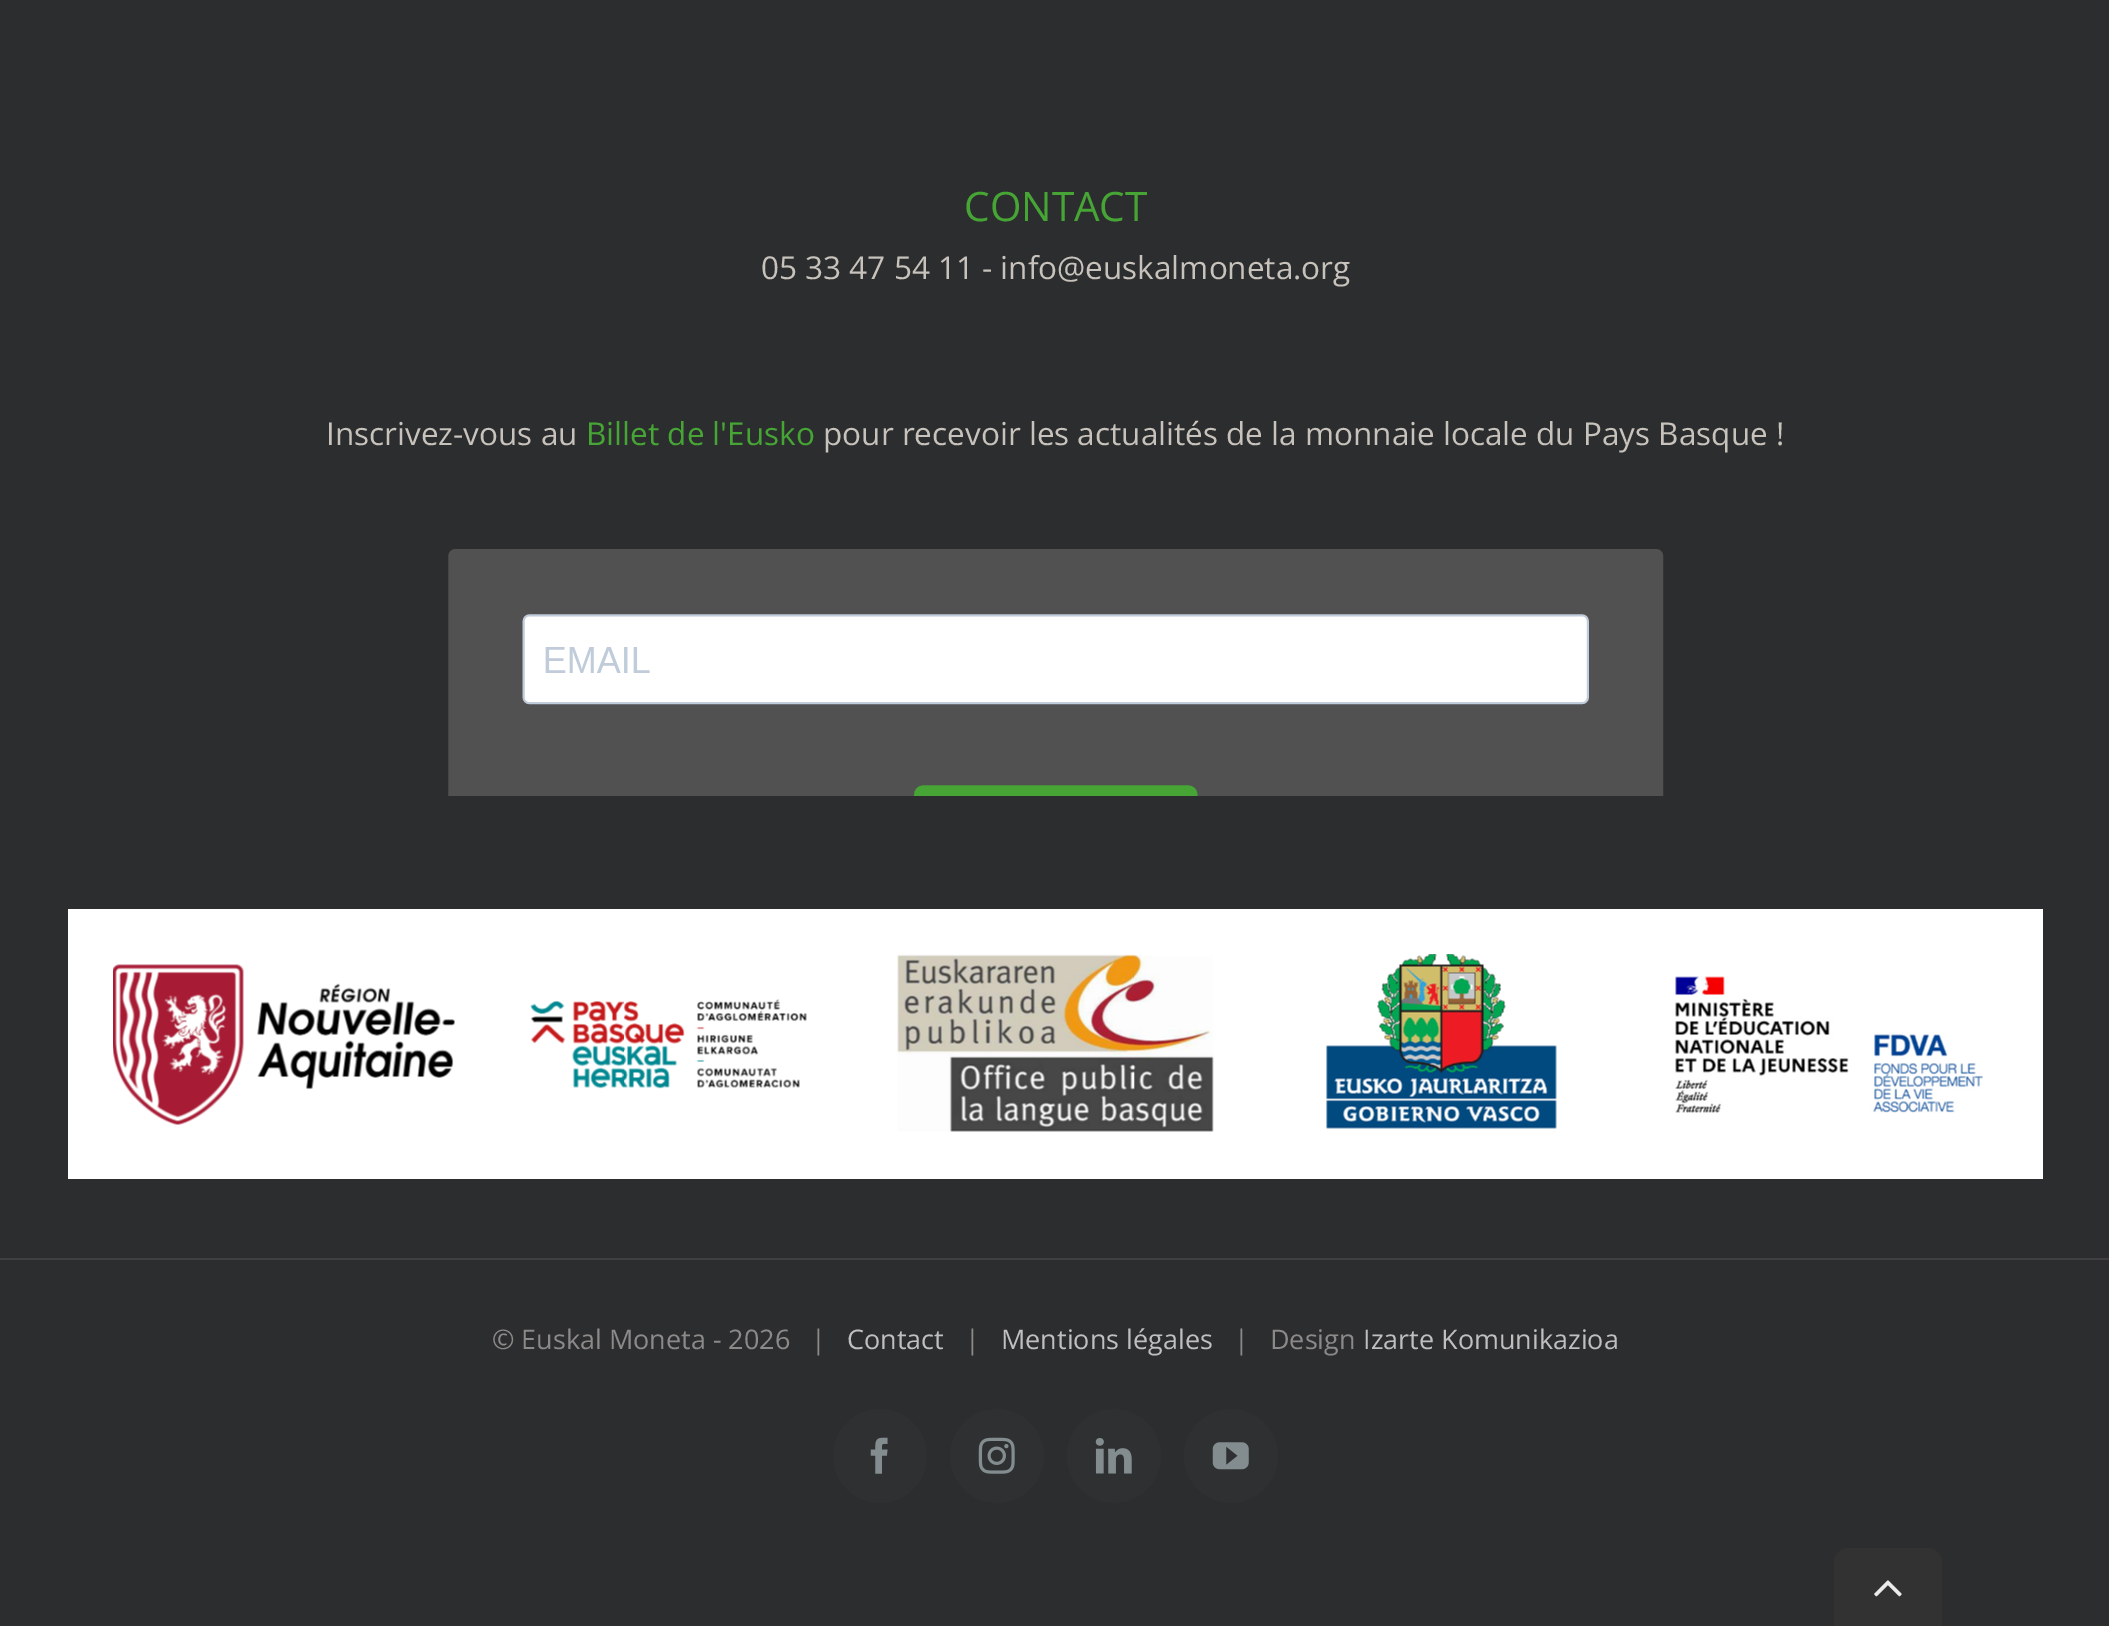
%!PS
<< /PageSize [2109 1626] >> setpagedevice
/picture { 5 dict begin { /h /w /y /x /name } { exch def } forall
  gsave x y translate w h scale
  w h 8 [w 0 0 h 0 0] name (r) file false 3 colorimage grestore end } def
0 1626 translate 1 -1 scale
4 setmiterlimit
0.173 0.176 0.184 setrgbcolor
0 0 2109 1626 rectfill
/OpenSans-Regular [40.5 0 0 -40.5 0 0] selectfont
0.275 0.647 0.204 setrgbcolor
964 221 moveto (CONTACT) show
/OpenSans-Regular [31.5 0 0 -31.5 0 0] selectfont
0.78 0.761 0.733 setrgbcolor
761 279 moveto (05 33 47 54 11 - info@euskalmoneta.org) show
326 445 moveto (Inscrivez-vous au) show
0.275 0.647 0.204 setrgbcolor
586 445 moveto (Billet de l'Eusko) show
0.78 0.761 0.733 setrgbcolor
823 445 moveto (pour recevoir les actualités de la monnaie locale du Pays Basque !) show
(img1.rgb) 448 549 1216 247 picture
1 setgray
68 909 1975 270 rectfill
(img2.rgb) 113 964 342 161 picture
(img3.rgb) 530 999 277 90 picture
(img4.rgb) 897 954 317 178 picture
(img5.rgb) 1326 954 231 175 picture
(img6.rgb) 1675 976 308 137 picture
0.251 0.251 0.259 setrgbcolor
0 1258 2109 2 rectfill
/OpenSans-Regular [27 0 0 -27 0 0] selectfont
0.549 0.537 0.537 setrgbcolor
492 1349 moveto (© Euskal Moneta - 2026   |) show
0.749 setgray
847 1349 moveto (Contact) show
0.549 0.537 0.537 setrgbcolor
965 1349 moveto (|) show
0.749 setgray
1001 1349 moveto (Mentions légales) show
0.549 0.537 0.537 setrgbcolor
1234 1349 moveto (|   Design) show
0.749 setgray
1363 1349 moveto (Izarte Komunikazioa) show
0.184 0.188 0.196 setrgbcolor
newpath 880 1456 47 0 360 arc closepath fill
(img7.rgb) 870 1437 18 37 picture
newpath 997 1456 47 0 360 arc closepath fill
(img8.rgb) 978 1437 37 37 picture
newpath 1114 1456 47 0 360 arc closepath fill
(img9.rgb) 1095 1438 37 36 picture
newpath 1231 1456 47 0 360 arc closepath fill
(img10.rgb) 1212 1442 37 28 picture
0.196 0.196 0.2 setrgbcolor
newpath 1848 1548 moveto 1928 1548 lineto 1935.5 1548 1942 1554.5 1942 1562 curveto 1942 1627 lineto 1834 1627 lineto 1834 1562 lineto 1834 1554.5 1840.5 1548 1848 1548 curveto closepath fill
(img11.rgb) 1874 1580 28 17 picture
showpage
